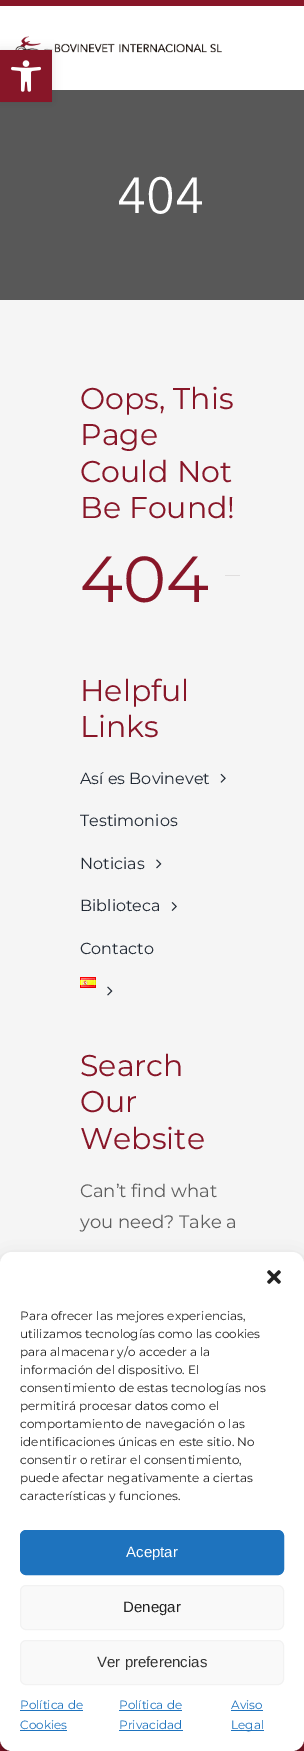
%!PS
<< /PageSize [304 1751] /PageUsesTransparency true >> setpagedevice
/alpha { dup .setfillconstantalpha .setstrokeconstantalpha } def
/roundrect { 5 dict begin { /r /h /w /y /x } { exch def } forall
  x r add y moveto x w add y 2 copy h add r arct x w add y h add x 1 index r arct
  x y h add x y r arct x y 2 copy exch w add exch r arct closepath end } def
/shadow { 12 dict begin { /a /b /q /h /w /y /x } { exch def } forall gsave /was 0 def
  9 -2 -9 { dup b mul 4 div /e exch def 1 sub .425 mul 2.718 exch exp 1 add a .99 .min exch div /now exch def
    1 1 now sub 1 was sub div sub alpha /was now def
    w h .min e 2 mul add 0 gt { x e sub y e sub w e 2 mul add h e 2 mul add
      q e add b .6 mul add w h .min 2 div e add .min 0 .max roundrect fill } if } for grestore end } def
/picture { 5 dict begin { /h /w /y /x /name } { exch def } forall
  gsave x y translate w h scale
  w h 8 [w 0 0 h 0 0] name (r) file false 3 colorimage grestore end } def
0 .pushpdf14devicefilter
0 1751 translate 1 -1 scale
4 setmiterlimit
0.961 setgray
0 0 304 1751 rectfill
1 setgray
0 6 304 84 rectfill
(img2.rgb) 15 36 207 17 picture
0.345 setgray
0 90 304 210 rectfill
0 setgray
0 50 52 52 0 5 0.1 shadow
0.533 0.086 0.157 setrgbcolor
0 50 52 52 rectfill
(img1.rgb) 11 60 30 32 picture
0 0 304 6 rectfill
/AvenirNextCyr-Regular [50 0 0 -50 0 0] selectfont
1 setgray
117 213 moveto (404) show
/Montserrat-Regular [30 0 0 -30 0 0] selectfont
0.533 0.086 0.157 setrgbcolor
80 409 moveto (Oops, This) show
80 445 moveto (Page) show
80 482 moveto (Could Not) show
80 518 moveto (Be Found!) show
/Montserrat-Regular [65 0 0 -65 0 0] selectfont
80 602 moveto (404) show
0.878 0.871 0.871 setrgbcolor
225 575 15 1 rectfill
/Montserrat-Regular [30 0 0 -30 0 0] selectfont
0.533 0.086 0.157 setrgbcolor
80 701 moveto (Helpful) show
80 737 moveto (Links) show
/Montserrat-Regular [16 0 0 -16 0 0] selectfont
0.129 0.161 0.204 setrgbcolor
80 784 moveto (Así es Bovinevet) show
(img3.rgb) 220 773 6 10 picture
80 826 moveto (Testimonios) show
80 869 moveto (Noticias) show
(img4.rgb) 156 859 6 10 picture
80 911 moveto (Biblioteca) show
(img5.rgb) 171 902 6 9 picture
80 954 moveto (Contacto) show
(img6.rgb) 80 977 16 11 picture
(img7.rgb) 107 986 6 10 picture
/Montserrat-Regular [30 0 0 -30 0 0] selectfont
0.533 0.086 0.157 setrgbcolor
80 1076 moveto (Search) show
80 1112 moveto (Our) show
80 1149 moveto (Website) show
/Montserrat-Regular [18 0 0 -18 0 0] selectfont
0.369 setgray
80 1197 moveto (Can’t find what) show
80 1228 moveto (you need? Take a) show
0.533 0.086 0.157 setrgbcolor
0 1739 304 12 rectfill
0 setgray
0 1258 304 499 12 3 0.23 shadow
0 1262 304 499 12 10 0.19 shadow
1 setgray
0 1252 304 499 12 roundrect fill
(img8.rgb) 267 1270 14 14 picture
/Montserrat-Regular [12 0 0 -12 0 0] selectfont
0.133 setgray
20 1320 moveto (Para ofrecer las mejores experiencias,) show
20 1338 moveto (utilizamos tecnologías como las cookies) show
20 1356 moveto (para almacenar y/o acceder a la) show
20 1374 moveto (información del dispositivo. El) show
20 1392 moveto (consentimiento de estas tecnologías nos) show
20 1410 moveto (permitirá procesar datos como el) show
20 1428 moveto (comportamiento de navegación o las) show
20 1446 moveto (identificaciones únicas en este sitio. No) show
20 1464 moveto (consentir o retirar el consentimiento,) show
20 1482 moveto (puede afectar negativamente a ciertas) show
20 1500 moveto (características y funciones.) show
0.118 0.451 0.745 setrgbcolor
20.5 1530.5 263 44 5.5 roundrect gsave fill grestore
stroke
/LiberationSans-Regular [15 0 0 -15 0 0] selectfont
1 setgray
126 1557 moveto (Aceptar) show
0.976 setgray
20.5 1585.5 263 44 5.5 roundrect gsave fill grestore
0.949 setgray
stroke
0.133 setgray
123 1612 moveto (Denegar) show
0.976 setgray
20.5 1640.5 263 44 5.5 roundrect gsave fill grestore
0.949 setgray
stroke
0.2 setgray
97 1667 moveto (Ver preferencias) show
/Montserrat-Regular [12 0 0 -12 0 0] selectfont
0.118 0.451 0.745 setrgbcolor
20 1709 moveto (Política de) show
20 1710 63 1 rectfill
20 1729 moveto (Cookies) show
20 1730 47 1 rectfill
119 1709 moveto (Política de) show
119 1710 63 1 rectfill
119 1729 moveto (Privacidad) show
119 1730 64 1 rectfill
231 1709 moveto (Aviso) show
231 1710 32 1 rectfill
231 1730 33 1 rectfill
231 1729 moveto (Legal) show
.poppdf14devicefilter showpage
